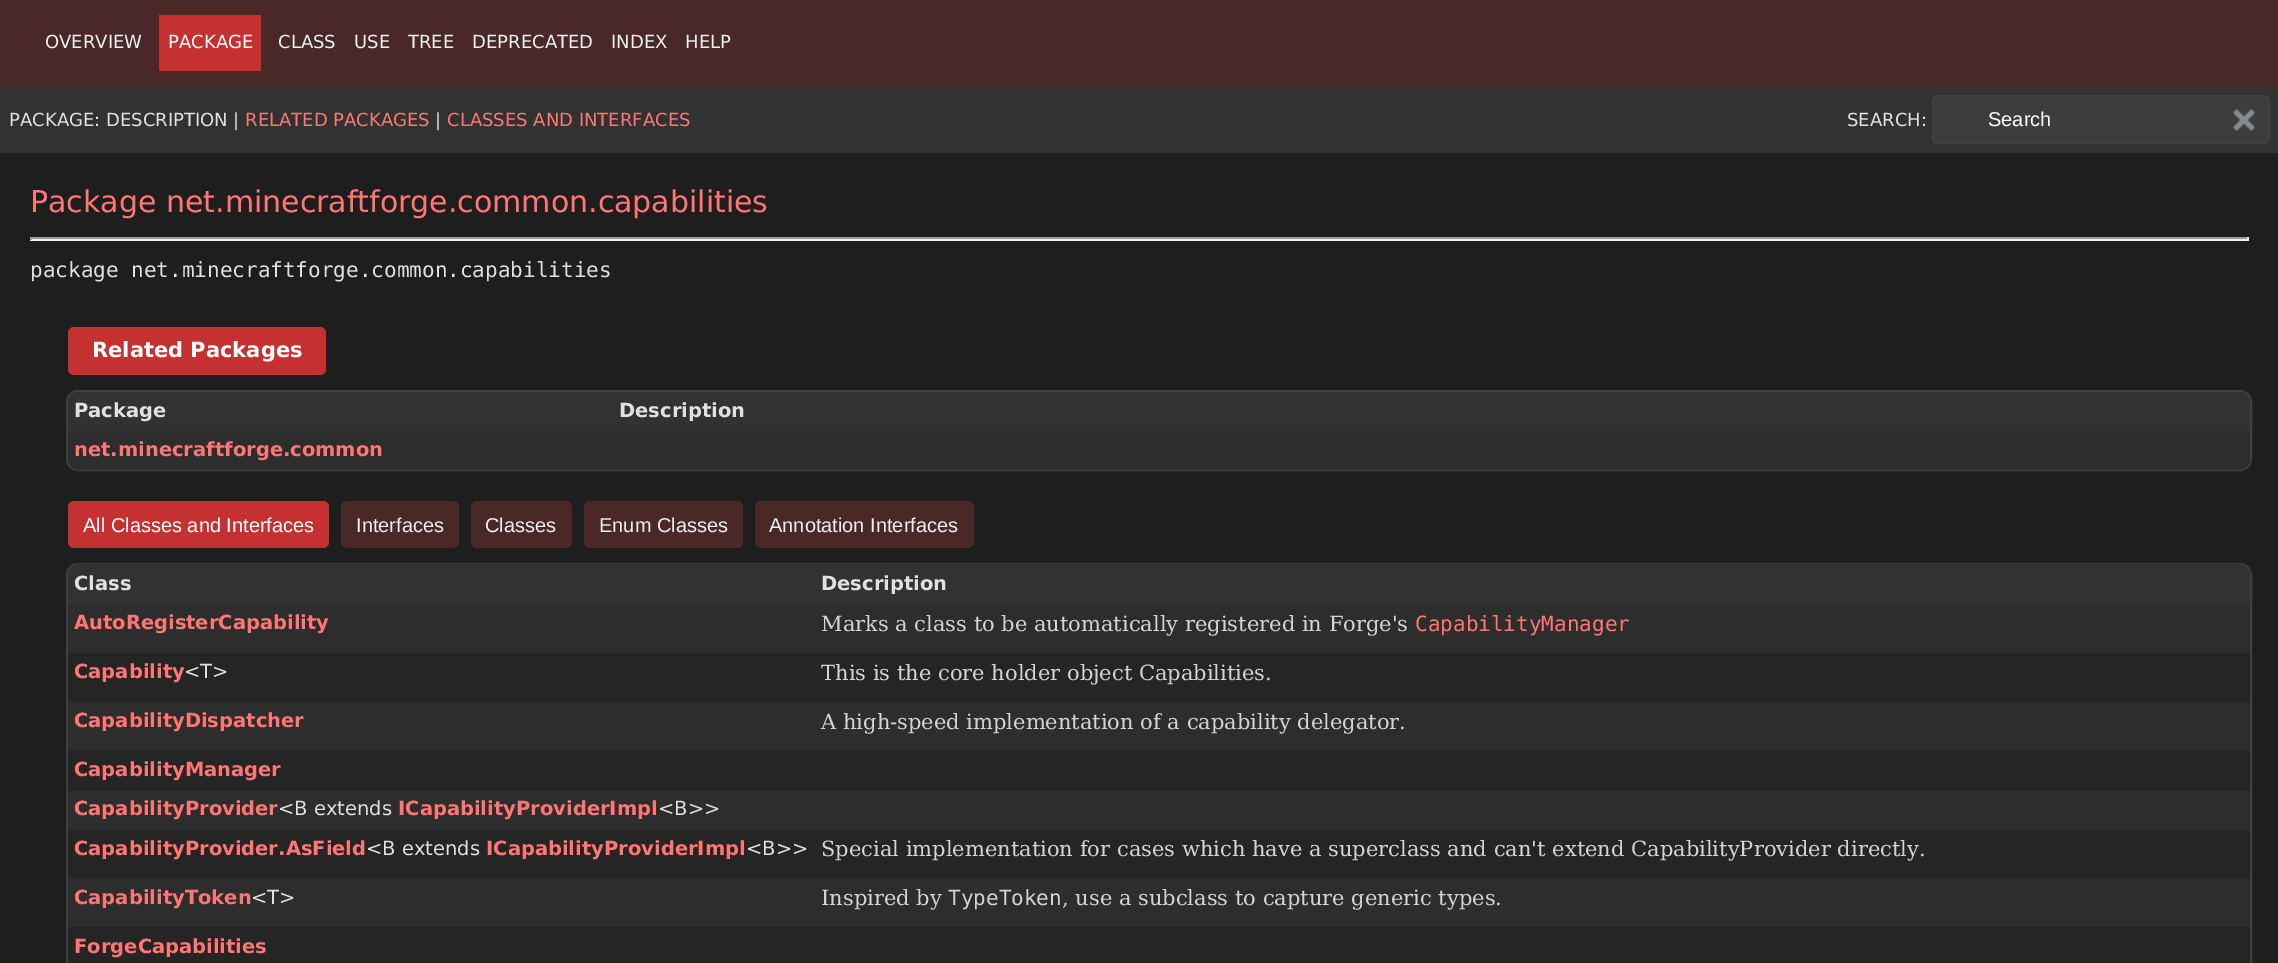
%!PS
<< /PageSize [2278 963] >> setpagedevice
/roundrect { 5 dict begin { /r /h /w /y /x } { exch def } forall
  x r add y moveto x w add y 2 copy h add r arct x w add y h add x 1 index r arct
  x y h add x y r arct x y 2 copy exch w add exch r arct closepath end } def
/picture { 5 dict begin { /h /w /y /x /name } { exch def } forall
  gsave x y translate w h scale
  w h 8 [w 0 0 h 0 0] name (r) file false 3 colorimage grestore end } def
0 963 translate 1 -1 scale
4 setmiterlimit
0.118 setgray
0 0 2278 963 rectfill
0.29 0.157 0.157 setrgbcolor
0 0 2278 86 rectfill
/DejaVuSans-Regular [18 0 0 -18 0 0] selectfont
0.925 0.941 0.945 setrgbcolor
45 48 moveto (OVERVIEW) show
0.773 0.188 0.188 setrgbcolor
159 15 102 56 rectfill
1 setgray
168 48 moveto (PACKAGE) show
0.925 0.941 0.945 setrgbcolor
278 48 moveto (CLASS) show
354 48 moveto (USE) show
408 48 moveto (TREE) show
472 48 moveto (DEPRECATED) show
611 48 moveto (INDEX) show
685 48 moveto (HELP) show
0.196 0.196 0.2 setrgbcolor
0 86 2278 67 rectfill
0.882 setgray
9 126 moveto (PACKAGE: DESCRIPTION |) show
1 0.463 0.459 setrgbcolor
245 126 moveto (RELATED PACKAGES) show
0.882 setgray
435 126 moveto (|) show
1 0.463 0.459 setrgbcolor
447 126 moveto (CLASSES AND INTERFACES) show
0.882 setgray
1847 126 moveto (SEARCH:) show
0.239 setgray
1933 96 336 47 5 roundrect gsave fill grestore
0.251 setgray
2 setlinewidth
stroke
/LiberationSans-Regular [20 0 0 -20 0 0] selectfont
1 setgray
1988 126 moveto (Search) show
(img1.rgb) 2233 109 22 22 picture
/DejaVuSans-Regular [30 0 0 -30 0 0] selectfont
1 0.463 0.459 setrgbcolor
30 212 moveto (Package net.minecraftforge.common.capabilities) show
0.624 setgray
30 237 2219 2 rectfill
0.933 setgray
2247 237 2 3 rectfill
30 239 2219 2 rectfill
0.624 setgray
30 237 2 3 rectfill
/DejaVuSansMono-Regular [21 0 0 -21 0 0] selectfont
0.882 setgray
30 277 moveto (package net.minecraftforge.common.capabilities) show
0.773 0.188 0.188 setrgbcolor
68 327 258 48 6 roundrect fill
/DejaVuSans-Bold [21 0 0 -21 0 0] selectfont
1 setgray
92 357 moveto (Related Packages) show
0.251 setgray
67 391 2184 79 11 roundrect stroke
0.196 0.196 0.2 setrgbcolor
newpath 79 392 moveto 614 392 lineto 614 431 lineto 68 431 lineto 68 403 lineto 68 397 73 392 79 392 curveto closepath fill
/DejaVuSans-Bold [19.5 0 0 -19.5 0 0] selectfont
0.882 setgray
74 417 moveto (Package) show
0.196 0.196 0.2 setrgbcolor
newpath 614 392 moveto 2239 392 lineto 2245 392 2250 397 2250 403 curveto 2250 431 lineto 614 431 lineto closepath fill
0.882 setgray
619 417 moveto (Description) show
0.176 setgray
newpath 68 431 moveto 614 431 lineto 614 470 lineto 79 470 lineto 73 470 68 465 68 459 curveto closepath fill
1 0.463 0.459 setrgbcolor
74 456 moveto (net.minecraftforge.common) show
0.176 setgray
newpath 614 431 moveto 2250 431 lineto 2250 459 lineto 2250 465 2245 470 2239 470 curveto 614 470 lineto closepath fill
0.773 0.188 0.188 setrgbcolor
68 501 261 47 6 roundrect fill
/LiberationSans-Regular [20 0 0 -20 0 0] selectfont
1 setgray
83 532 moveto (All Classes and Interfaces) show
0.29 0.157 0.157 setrgbcolor
341 501 118 47 6 roundrect fill
0.925 0.941 0.945 setrgbcolor
356 532 moveto (Interfaces) show
0.29 0.157 0.157 setrgbcolor
471 501 101 47 6 roundrect fill
0.925 0.941 0.945 setrgbcolor
485 532 moveto (Classes) show
0.29 0.157 0.157 setrgbcolor
584 501 159 47 6 roundrect fill
0.925 0.941 0.945 setrgbcolor
599 532 moveto (Enum Classes) show
0.29 0.157 0.157 setrgbcolor
755 501 219 47 6 roundrect fill
0.925 0.941 0.945 setrgbcolor
769 532 moveto (Annotation Interfaces) show
0.251 setgray
67 564 2184 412 11 roundrect stroke
0.196 0.196 0.2 setrgbcolor
newpath 79 564 moveto 815 564 lineto 815 605 lineto 68 605 lineto 68 575 lineto 68 569 73 564 79 564 curveto closepath fill
/DejaVuSans-Bold [19.5 0 0 -19.5 0 0] selectfont
0.882 setgray
74 590 moveto (Class) show
0.196 0.196 0.2 setrgbcolor
newpath 815 564 moveto 2239 564 lineto 2245 564 2250 569 2250 575 curveto 2250 605 lineto 815 605 lineto closepath fill
0.882 setgray
821 590 moveto (Description) show
0.176 setgray
68 605 2182 48 rectfill
1 0.463 0.459 setrgbcolor
74 629 moveto (AutoRegisterCapability) show
/DejaVuSerif-Regular [21 0 0 -21 0 0] selectfont
0.831 setgray
821 631 moveto (Marks a class to be automatically registered in Forge's) show
/DejaVuSansMono-Regular [21 0 0 -21 0 0] selectfont
1 0.463 0.459 setrgbcolor
1415 631 moveto (CapabilityManager) show
0.145 0.145 0.149 setrgbcolor
68 653 2182 49 rectfill
/DejaVuSans-Bold [19.5 0 0 -19.5 0 0] selectfont
1 0.463 0.459 setrgbcolor
74 678 moveto (Capability) show
/DejaVuSans-Regular [19.5 0 0 -19.5 0 0] selectfont
0.882 setgray
184 678 moveto (<T>) show
/DejaVuSerif-Regular [21 0 0 -21 0 0] selectfont
0.831 setgray
821 680 moveto (This is the core holder object Capabilities.) show
0.176 setgray
68 702 2182 48 rectfill
/DejaVuSans-Bold [19.5 0 0 -19.5 0 0] selectfont
1 0.463 0.459 setrgbcolor
74 727 moveto (CapabilityDispatcher) show
/DejaVuSerif-Regular [21 0 0 -21 0 0] selectfont
0.831 setgray
821 729 moveto (A high-speed implementation of a capability delegator.) show
0.145 0.145 0.149 setrgbcolor
68 750 2182 41 rectfill
/DejaVuSans-Bold [19.5 0 0 -19.5 0 0] selectfont
1 0.463 0.459 setrgbcolor
74 776 moveto (CapabilityManager) show
0.176 setgray
68 791 2182 39 rectfill
1 0.463 0.459 setrgbcolor
74 815 moveto (CapabilityProvider) show
/DejaVuSans-Regular [19.5 0 0 -19.5 0 0] selectfont
0.882 setgray
278 815 moveto (<B extends) show
/DejaVuSans-Bold [19.5 0 0 -19.5 0 0] selectfont
1 0.463 0.459 setrgbcolor
398 815 moveto (ICapabilityProviderImpl) show
/DejaVuSans-Regular [19.5 0 0 -19.5 0 0] selectfont
0.882 setgray
658 815 moveto (<B>>) show
0.145 0.145 0.149 setrgbcolor
68 830 2182 48 rectfill
/DejaVuSans-Bold [19.5 0 0 -19.5 0 0] selectfont
1 0.463 0.459 setrgbcolor
74 855 moveto (CapabilityProvider.AsField) show
/DejaVuSans-Regular [19.5 0 0 -19.5 0 0] selectfont
0.882 setgray
366 855 moveto (<B extends) show
/DejaVuSans-Bold [19.5 0 0 -19.5 0 0] selectfont
1 0.463 0.459 setrgbcolor
486 855 moveto (ICapabilityProviderImpl) show
/DejaVuSans-Regular [19.5 0 0 -19.5 0 0] selectfont
0.882 setgray
746 855 moveto (<B>>) show
/DejaVuSerif-Regular [21 0 0 -21 0 0] selectfont
0.831 setgray
821 856 moveto (Special implementation for cases which have a superclass and can't extend CapabilityProvider directly.) show
0.176 setgray
68 878 2182 49 rectfill
/DejaVuSans-Bold [19.5 0 0 -19.5 0 0] selectfont
1 0.463 0.459 setrgbcolor
74 904 moveto (CapabilityToken) show
/DejaVuSans-Regular [19.5 0 0 -19.5 0 0] selectfont
0.882 setgray
251 904 moveto (<T>) show
/DejaVuSerif-Regular [21 0 0 -21 0 0] selectfont
0.831 setgray
821 905 moveto (Inspired by) show
/DejaVuSansMono-Regular [21 0 0 -21 0 0] selectfont
948 905 moveto (TypeToken) show
/DejaVuSerif-Regular [21 0 0 -21 0 0] selectfont
1062 905 moveto (, use a subclass to capture generic types.) show
0.145 0.145 0.149 setrgbcolor
68 927 2182 36 rectfill
/DejaVuSans-Bold [19.5 0 0 -19.5 0 0] selectfont
1 0.463 0.459 setrgbcolor
74 953 moveto (ForgeCapabilities) show
showpage
